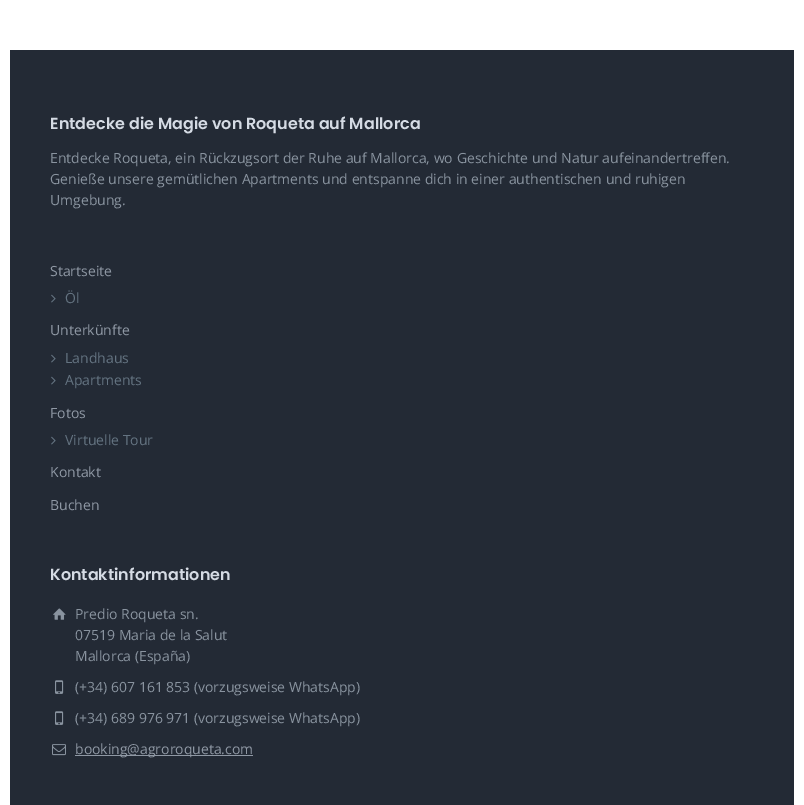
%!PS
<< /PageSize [804 805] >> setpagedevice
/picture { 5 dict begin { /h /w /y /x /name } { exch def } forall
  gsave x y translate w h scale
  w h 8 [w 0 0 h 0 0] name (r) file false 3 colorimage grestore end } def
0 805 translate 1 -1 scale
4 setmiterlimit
1 setgray
0 0 804 805 rectfill
0.137 0.165 0.208 setrgbcolor
10 50 784 755 rectfill
/Poppins-SemiBold [16 0 0 -16 0 0] selectfont
0.835 0.859 0.894 setrgbcolor
50 129 moveto (Entdecke die Magie von Roqueta auf Mallorca) show
/OpenSans-Regular [14 0 0 -14 0 0] selectfont
0.537 0.576 0.624 setrgbcolor
50 163 moveto (Entdecke Roqueta, ein Rückzugsort der Ruhe auf Mallorca, wo Geschichte und Natur aufeinandertreffen.) show
50 184 moveto (Genieße unsere gemütlichen Apartments und entspanne dich in einer authentischen und ruhigen) show
50 205 moveto (Umgebung.) show
0.561 0.596 0.643 setrgbcolor
50 276 moveto (Startseite) show
(img1.rgb) 51 294 5 9 picture
0.392 0.451 0.506 setrgbcolor
65 303 moveto (Öl) show
0.561 0.596 0.643 setrgbcolor
50 335 moveto (Unterkünfte) show
(img1.rgb) 51 354 5 9 picture
0.392 0.451 0.506 setrgbcolor
65 363 moveto (Landhaus) show
(img1.rgb) 51 376 5 9 picture
65 385 moveto (Apartments) show
0.561 0.596 0.643 setrgbcolor
50 418 moveto (Fotos) show
(img1.rgb) 51 436 5 9 picture
0.392 0.451 0.506 setrgbcolor
65 445 moveto (Virtuelle Tour) show
0.561 0.596 0.643 setrgbcolor
50 477 moveto (Kontakt) show
50 510 moveto (Buchen) show
/Poppins-SemiBold [16 0 0 -16 0 0] selectfont
0.835 0.859 0.894 setrgbcolor
50 580 moveto (Kontaktinformationen) show
(img2.rgb) 53 608 13 12 picture
/OpenSans-Regular [14 0 0 -14 0 0] selectfont
0.537 0.576 0.624 setrgbcolor
75 619 moveto (Predio Roqueta sn.) show
75 640 moveto (07519 Maria de la Salut) show
75 661 moveto (Mallorca \(España\)) show
(img3.rgb) 55 680 9 14 picture
75 692 moveto (\(+34\) 607 161 853 \(vorzugsweise WhatsApp\)) show
(img3.rgb) 55 711 9 14 picture
75 723 moveto (\(+34\) 689 976 971 \(vorzugsweise WhatsApp\)) show
(img4.rgb) 52 744 14 12 picture
0.561 0.596 0.643 setrgbcolor
75 755 178 1 rectfill
75 754 moveto (booking@agroroqueta.com) show
showpage
